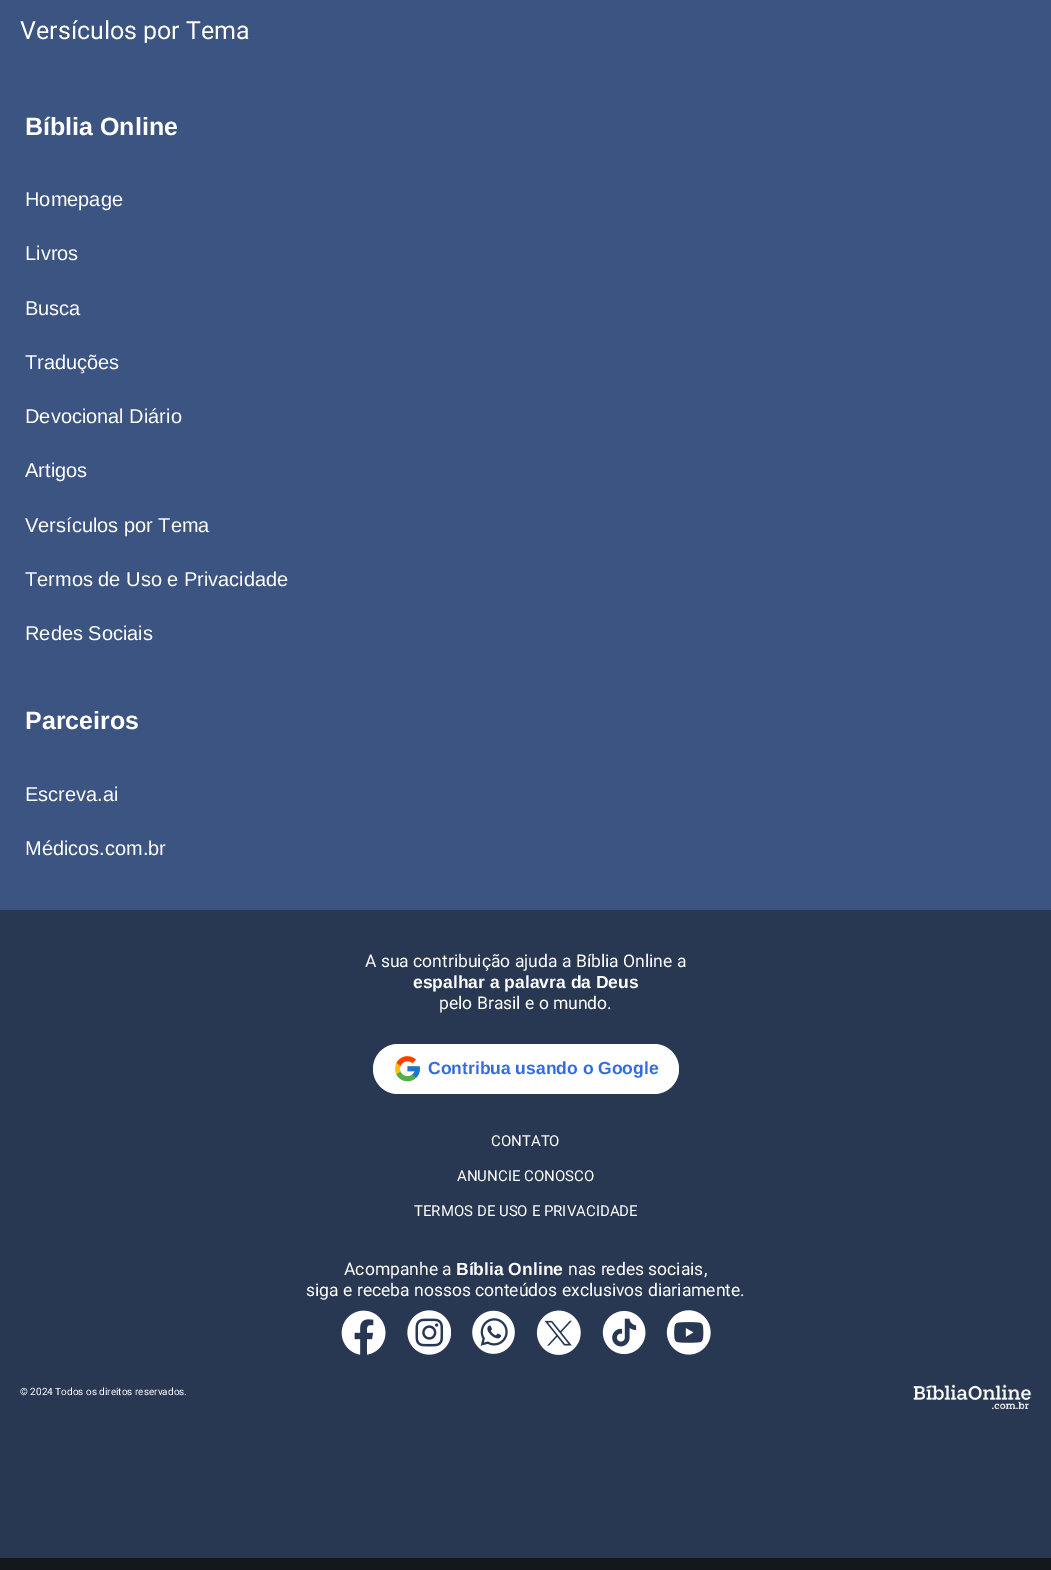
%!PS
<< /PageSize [1051 1570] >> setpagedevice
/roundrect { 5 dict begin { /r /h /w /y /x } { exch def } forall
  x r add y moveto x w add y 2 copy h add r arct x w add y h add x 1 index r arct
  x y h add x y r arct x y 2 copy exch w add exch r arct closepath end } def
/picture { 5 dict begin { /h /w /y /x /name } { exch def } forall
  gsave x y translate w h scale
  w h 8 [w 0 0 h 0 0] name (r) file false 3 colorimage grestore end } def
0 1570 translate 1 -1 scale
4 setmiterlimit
0.235 0.329 0.506 setrgbcolor
0 0 1051 1570 rectfill
gsave
20 18 230 25 rectclip
/Roboto-Regular [25 0 0 -25 0 0] selectfont
1 setgray
20 39 moveto (Versículos por Tema) show
grestore
/LiberationSans-Bold [25 0 0 -25 0 0] selectfont
1 setgray
25 135 moveto (Bíblia Online) show
/LiberationSans-Regular [20 0 0 -20 0 0] selectfont
25 206 moveto (Homepage) show
25 260 moveto (Livros) show
25 315 moveto (Busca) show
25 369 moveto (Traduções) show
25 423 moveto (Devocional Diário) show
25 477 moveto (Artigos) show
25 532 moveto (Versículos por Tema) show
25 586 moveto (Termos de Uso e Privacidade) show
25 640 moveto (Redes Sociais) show
/LiberationSans-Bold [25 0 0 -25 0 0] selectfont
25 729 moveto (Parceiros) show
/LiberationSans-Regular [20 0 0 -20 0 0] selectfont
25 801 moveto (Escreva.ai) show
25 855 moveto (Médicos.com.br) show
0.157 0.216 0.322 setrgbcolor
0 910 1051 648 rectfill
/Roboto-Regular [17.5 0 0 -17.5 0 0] selectfont
1 setgray
365 967 moveto (A sua contribuição ajuda a Bíblia Online a) show
/LiberationSans-Bold [17.5 0 0 -17.5 0 0] selectfont
413 988 moveto (espalhar a palavra da Deus) show
/Roboto-Regular [17.5 0 0 -17.5 0 0] selectfont
439 1009 moveto (pelo Brasil e o mundo.) show
373 1044 306 50 25 roundrect fill
(img1.rgb) 395 1056 25 26 picture
/LiberationSans-Bold [17.5 0 0 -17.5 0 0] selectfont
0.204 0.427 0.859 setrgbcolor
428 1074 moveto (Contribua usando o Google) show
/Roboto-Regular [15 0 0 -15 0 0] selectfont
1 setgray
491 1146 moveto (CONTATO) show
457 1181 moveto (ANUNCIE CONOSCO) show
414 1216 moveto (TERMOS DE USO E PRIVACIDADE) show
/Roboto-Regular [17.5 0 0 -17.5 0 0] selectfont
344 1275 moveto (Acompanhe a) show
/LiberationSans-Bold [17.5 0 0 -17.5 0 0] selectfont
456 1275 moveto (Bíblia Online) show
/Roboto-Regular [17.5 0 0 -17.5 0 0] selectfont
568 1275 moveto (nas redes sociais,) show
306 1296 moveto (siga e receba nossos conteúdos exclusivos diariamente.) show
(img2.rgb) 341 1310 45 45 picture
(img3.rgb) 407 1310 44 45 picture
(img4.rgb) 472 1310 43 44 picture
(img5.rgb) 536 1310 45 45 picture
(img6.rgb) 602 1311 44 44 picture
(img7.rgb) 666 1310 45 45 picture
/Roboto-Regular [10 0 0 -10 0 0] selectfont
20 1395 moveto (© 2024 Todos os direitos reservados.) show
(img8.rgb) 913 1384 119 25 picture
0.078 0.094 0.11 setrgbcolor
0 1558 1051 12 rectfill
showpage
